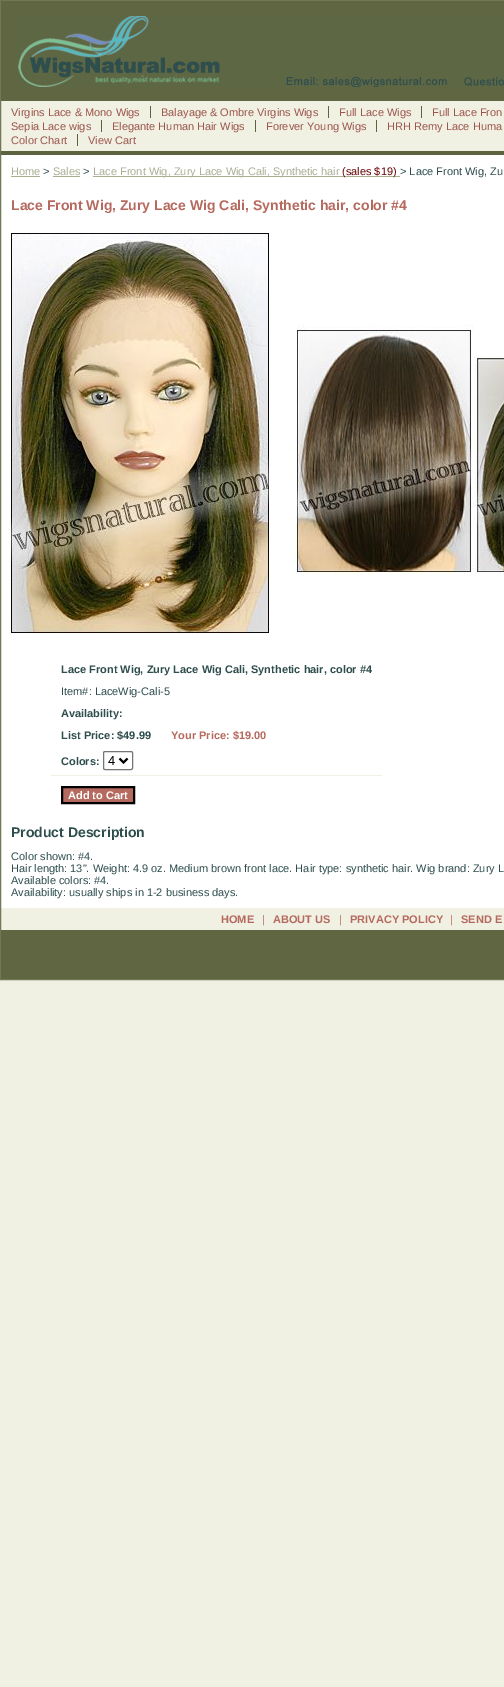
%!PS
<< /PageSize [504 1687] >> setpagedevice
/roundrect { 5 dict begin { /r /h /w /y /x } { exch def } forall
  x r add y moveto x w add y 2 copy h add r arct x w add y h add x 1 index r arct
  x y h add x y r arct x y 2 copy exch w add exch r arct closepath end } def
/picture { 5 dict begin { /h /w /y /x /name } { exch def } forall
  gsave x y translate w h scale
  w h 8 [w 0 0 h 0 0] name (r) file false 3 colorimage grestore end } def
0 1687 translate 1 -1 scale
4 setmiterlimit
0.941 0.941 0.89 setrgbcolor
0 0 504 1687 rectfill
1 setgray
1 155 503 753 rectfill
0.443 0.471 0.341 setrgbcolor
0.5 0.5 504 979 rectstroke
0.376 0.4 0.259 setrgbcolor
1 1 503 100 rectfill
(img1.rgb) 16 16 488 71 picture
0.361 0.388 0.247 setrgbcolor
1 151 503 4 rectfill
/LiberationSans-Regular [11 0 0 -11 0 0] selectfont
0.612 0.337 0.298 setrgbcolor
11 116 moveto (Virgins Lace & Mono Wigs) show
0.361 0.388 0.247 setrgbcolor
150 106 1 12 rectfill
0.612 0.337 0.298 setrgbcolor
161 116 moveto (Balayage & Ombre Virgins Wigs) show
0.361 0.388 0.247 setrgbcolor
328 106 1 12 rectfill
0.612 0.337 0.298 setrgbcolor
339 116 moveto (Full Lace Wigs) show
0.361 0.388 0.247 setrgbcolor
421 106 1 12 rectfill
0.612 0.337 0.298 setrgbcolor
432 116 moveto (Full Lace Fron) show
11 130 moveto (Sepia Lace wigs) show
0.361 0.388 0.247 setrgbcolor
101 120 1 12 rectfill
0.612 0.337 0.298 setrgbcolor
112 130 moveto (Elegante Human Hair Wigs) show
0.361 0.388 0.247 setrgbcolor
255 120 1 12 rectfill
0.612 0.337 0.298 setrgbcolor
266 130 moveto (Forever Young Wigs) show
0.361 0.388 0.247 setrgbcolor
376 120 1 12 rectfill
0.612 0.337 0.298 setrgbcolor
387 130 moveto (HRH Remy Lace Huma) show
11 144 moveto (Color Chart) show
0.361 0.388 0.247 setrgbcolor
77 134 1 12 rectfill
0.612 0.337 0.298 setrgbcolor
88 144 moveto (View Cart) show
0.667 0.686 0.58 setrgbcolor
11 175 moveto (Home) show
11 176 29 1 rectfill
0.18 0.302 0.302 setrgbcolor
43 175 moveto (>) show
0.667 0.686 0.58 setrgbcolor
53 175 moveto (Sales) show
53 176 27 1 rectfill
0.18 0.302 0.302 setrgbcolor
83 175 moveto (>) show
0.667 0.686 0.58 setrgbcolor
93 176 307 1 rectfill
93 175 moveto (Lace Front Wig, Zury Lace Wig Cali, Synthetic hair) show
0.4 0 0 setrgbcolor
342 175 moveto (\(sales $19\)) show
0.18 0.302 0.302 setrgbcolor
400 175 moveto (> Lace Front Wig, Zu) show
/LiberationSans-Bold [14 0 0 -14 0 0] selectfont
0.714 0.412 0.369 setrgbcolor
11 210 moveto (Lace Front Wig, Zury Lace Wig Cali, Synthetic hair, color #4) show
(img2.rgb) 11 233 258 400 picture
(img3.rgb) 289 324 215 251 picture
/LiberationSans-Bold [11 0 0 -11 0 0] selectfont
0.18 0.302 0.302 setrgbcolor
61 673 moveto (Lace Front Wig, Zury Lace Wig Cali, Synthetic hair, color #4) show
/LiberationSans-Regular [11 0 0 -11 0 0] selectfont
61 695 moveto (Item#: LaceWig-Cali-5) show
/LiberationSans-Bold [11 0 0 -11 0 0] selectfont
61 717 moveto (Availability:) show
61 739 moveto (List Price: $49.99) show
0.714 0.412 0.369 setrgbcolor
171 739 moveto (Your Price: $19.00) show
0.18 0.302 0.302 setrgbcolor
61 765 moveto (Colors:) show
0.463 setgray
103.5 751.5 29 18 1.5 roundrect stroke
0 setgray
2 setlinewidth
newpath 119.5 758.5 moveto 123.5 762.5 lineto 127.5 758.5 lineto stroke
/LiberationSans-Regular [13 0 0 -13 0 0] selectfont
108 765 moveto (4) show
0.941 0.941 0.89 setrgbcolor
51 775 331 1 rectfill
0.714 0.412 0.369 setrgbcolor
newpath 62 787 moveto 134 787 lineto 134 803 lineto 62 803 lineto closepath gsave fill grestore
0 setgray
stroke
/LiberationSans-Bold [11 0 0 -11 0 0] selectfont
1 setgray
68 799 moveto (Add to Cart) show
/LiberationSans-Bold [14 0 0 -14 0 0] selectfont
0.18 0.302 0.302 setrgbcolor
11 837 moveto (Product Description) show
/LiberationSans-Regular [11 0 0 -11 0 0] selectfont
11 860 moveto (Color shown: #4.) show
11 872 moveto (Hair length: 13". Weight: 4.9 oz. Medium brown front lace. Hair type: synthetic hair. Wig brand: Zury L) show
11 884 moveto (Available colors: #4.) show
11 896 moveto (Availability: usually ships in 1-2 business days.) show
0.376 0.4 0.259 setrgbcolor
1 930 503 49 rectfill
/LiberationSans-Bold [11 0 0 -11 0 0] selectfont
0.714 0.412 0.369 setrgbcolor
221 923 moveto (HOME) show
/LiberationSans-Regular [11 0 0 -11 0 0] selectfont
262 923 moveto (|) show
/LiberationSans-Bold [11 0 0 -11 0 0] selectfont
273 923 moveto (ABOUT US) show
/LiberationSans-Regular [11 0 0 -11 0 0] selectfont
339 923 moveto (|) show
/LiberationSans-Bold [11 0 0 -11 0 0] selectfont
350 923 moveto (PRIVACY POLICY) show
/LiberationSans-Regular [11 0 0 -11 0 0] selectfont
450 923 moveto (|) show
/LiberationSans-Bold [11 0 0 -11 0 0] selectfont
461 923 moveto (SEND E) show
showpage
